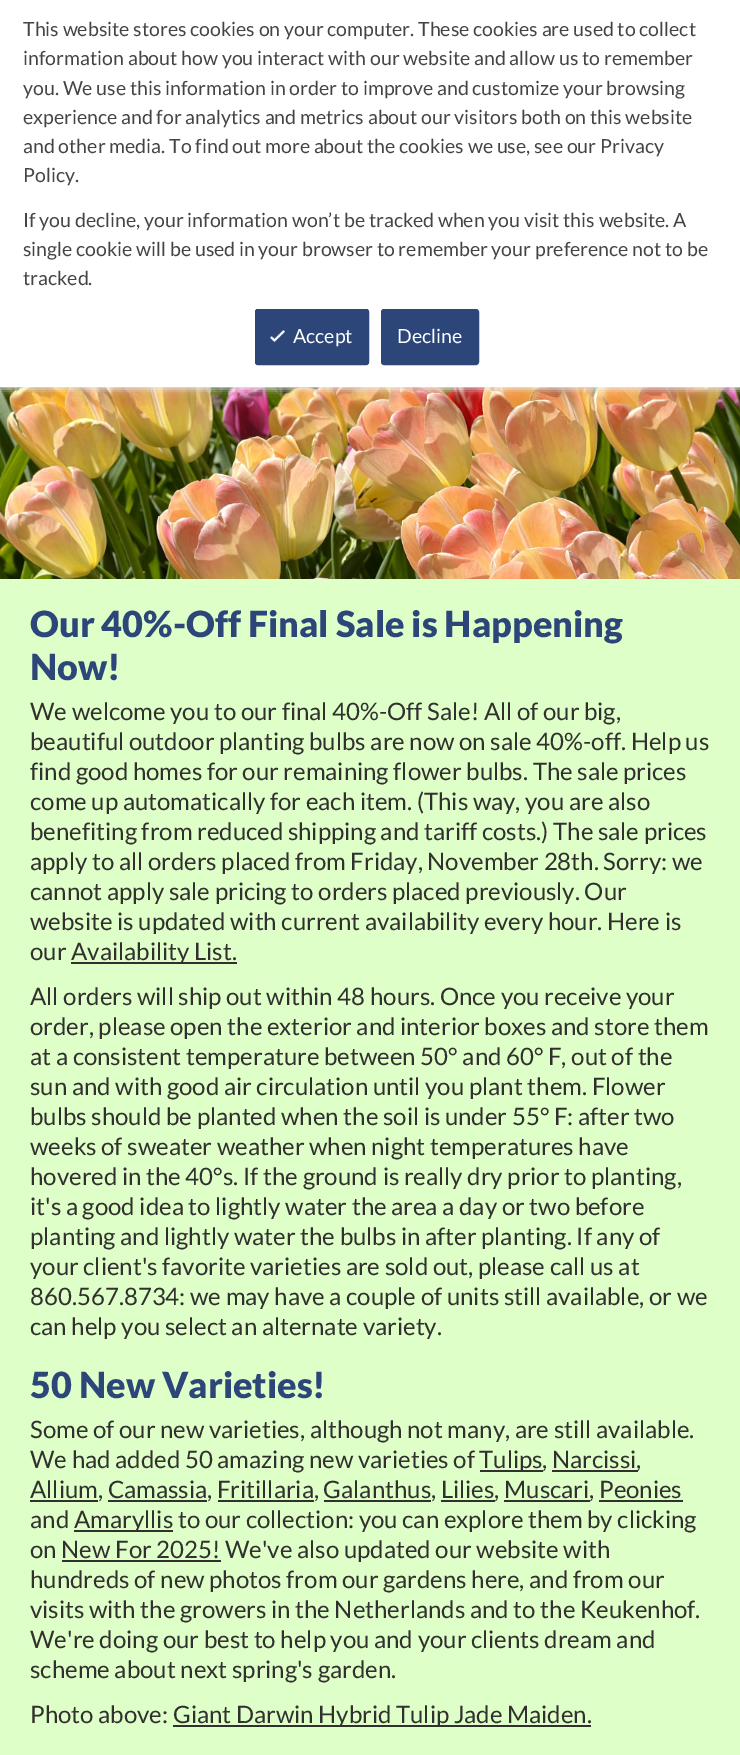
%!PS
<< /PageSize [740 1755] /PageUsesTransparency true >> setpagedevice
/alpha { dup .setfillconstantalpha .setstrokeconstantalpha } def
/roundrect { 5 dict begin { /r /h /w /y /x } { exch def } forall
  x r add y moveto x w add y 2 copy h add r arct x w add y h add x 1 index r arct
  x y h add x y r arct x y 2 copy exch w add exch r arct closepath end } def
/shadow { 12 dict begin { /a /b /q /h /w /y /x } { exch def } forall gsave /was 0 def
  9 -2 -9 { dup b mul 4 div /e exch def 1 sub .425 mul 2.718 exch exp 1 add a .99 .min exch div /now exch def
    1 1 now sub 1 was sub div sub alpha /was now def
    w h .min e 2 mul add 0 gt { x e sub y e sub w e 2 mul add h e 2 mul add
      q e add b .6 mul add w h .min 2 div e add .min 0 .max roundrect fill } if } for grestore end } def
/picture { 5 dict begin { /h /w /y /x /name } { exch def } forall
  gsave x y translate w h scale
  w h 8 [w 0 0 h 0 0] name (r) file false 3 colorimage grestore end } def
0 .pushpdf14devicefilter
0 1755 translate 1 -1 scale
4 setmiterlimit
0.871 1 0.784 setrgbcolor
0 0 740 1755 rectfill
(img2.rgb) 0 387 740 192 picture
0.918 0.941 0.965 setrgbcolor
0 2 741 387 0 4 1 shadow
1 setgray
0 0 740 387 rectfill
/Lato-Regular [19.5 0 0 -19.5 0 0] selectfont
0.267 setgray
23 36 moveto (This website stores cookies on your computer. These cookies are used to collect) show
23 65 moveto (information about how you interact with our website and allow us to remember) show
23 95 moveto (you. We use this information in order to improve and customize your browsing) show
23 124 moveto (experience and for analytics and metrics about our visitors both on this website) show
23 153 moveto (and other media. To find out more about the cookies we use, see our Privacy) show
23 182 moveto (Policy.) show
23 227 moveto (If you decline, your information won’t be tracked when you visit this website. A) show
23 256 moveto (single cookie will be used in your browser to remember your preference not to be) show
23 285 moveto (tracked.) show
0.176 0.275 0.475 setrgbcolor
255 309 114 56 3 roundrect fill
(img1.rgb) 270 330 15 12 picture
2 setlinewidth
256 310 112 54 2 roundrect stroke
1 setgray
293 343 moveto (Accept) show
0.176 0.275 0.475 setrgbcolor
382 310 96 54 2 roundrect gsave fill grestore
stroke
1 setgray
397 343 moveto (Decline) show
/Lato-Black [36 0 0 -36 0 0] selectfont
0.176 0.275 0.475 setrgbcolor
30 637 moveto (Our 40%-Off Final Sale is Happening) show
30 680 moveto (Now!) show
/Lato-Regular [24 0 0 -24 0 0] selectfont
0.192 0.188 0.18 setrgbcolor
30 720 moveto (We welcome you to our final 40%-Off Sale! All of our big,) show
30 750 moveto (beautiful outdoor planting bulbs are now on sale 40%-off. Help us) show
30 780 moveto (find good homes for our remaining flower bulbs. The sale prices) show
30 810 moveto (come up automatically for each item. \(This way, you are also) show
30 840 moveto (benefiting from reduced shipping and tariff costs.\) The sale prices) show
30 870 moveto (apply to all orders placed from Friday, November 28th. Sorry: we) show
30 900 moveto (cannot apply sale pricing to orders placed previously. Our) show
30 930 moveto (website is updated with current availability every hour. Here is) show
30 960 moveto (our) show
71 962 166 2 rectfill
71 960 moveto (Availability List.) show
30 1005 moveto (All orders will ship out within 48 hours. Once you receive your) show
30 1035 moveto (order, please open the exterior and interior boxes and store them) show
30 1065 moveto (at a consistent temperature between 50° and 60° F, out of the) show
30 1095 moveto (sun and with good air circulation until you plant them. Flower) show
30 1125 moveto (bulbs should be planted when the soil is under 55° F: after two) show
30 1155 moveto (weeks of sweater weather when night temperatures have) show
30 1185 moveto (hovered in the 40°s. If the ground is really dry prior to planting,) show
30 1215 moveto (it's a good idea to lightly water the area a day or two before) show
30 1245 moveto (planting and lightly water the bulbs in after planting. If any of) show
30 1275 moveto (your client's favorite varieties are sold out, please call us at) show
30 1305 moveto (860.567.8734: we may have a couple of units still available, or we) show
30 1335 moveto (can help you select an alternate variety.) show
/Lato-Black [36 0 0 -36 0 0] selectfont
0.176 0.275 0.475 setrgbcolor
30 1398 moveto (50 New Varieties!) show
/Lato-Regular [24 0 0 -24 0 0] selectfont
0.192 0.188 0.18 setrgbcolor
30 1438 moveto (Some of our new varieties, although not many, are still available.) show
30 1468 moveto (We had added 50 amazing new varieties of) show
480 1470 63 2 rectfill
479 1468 moveto (Tulips, Narcissi,) show
552 1470 86 2 rectfill
30 1500 68 2 rectfill
30 1498 moveto (Allium, Camassia, Fritillaria, Galanthus, Lilies, Muscari, Peonies) show
108 1500 99 2 rectfill
218 1500 96 2 rectfill
324 1500 107 2 rectfill
441 1500 54 2 rectfill
504 1500 86 2 rectfill
599 1500 84 2 rectfill
30 1528 moveto (and) show
74 1530 99 2 rectfill
74 1528 moveto (Amaryllis to our collection: you can explore them by clicking) show
30 1558 moveto (on New For 2025! We've also updated our website with) show
62 1560 159 2 rectfill
30 1588 moveto (hundreds of new photos from our gardens here, and from our) show
30 1618 moveto (visits with the growers in the Netherlands and to the Keukenhof.) show
30 1648 moveto (We're doing our best to help you and your clients dream and) show
30 1678 moveto (scheme about next spring's garden.) show
30 1723 moveto (Photo above:) show
173 1725 418 2 rectfill
173 1723 moveto (Giant Darwin Hybrid Tulip Jade Maiden.) show
.poppdf14devicefilter showpage
